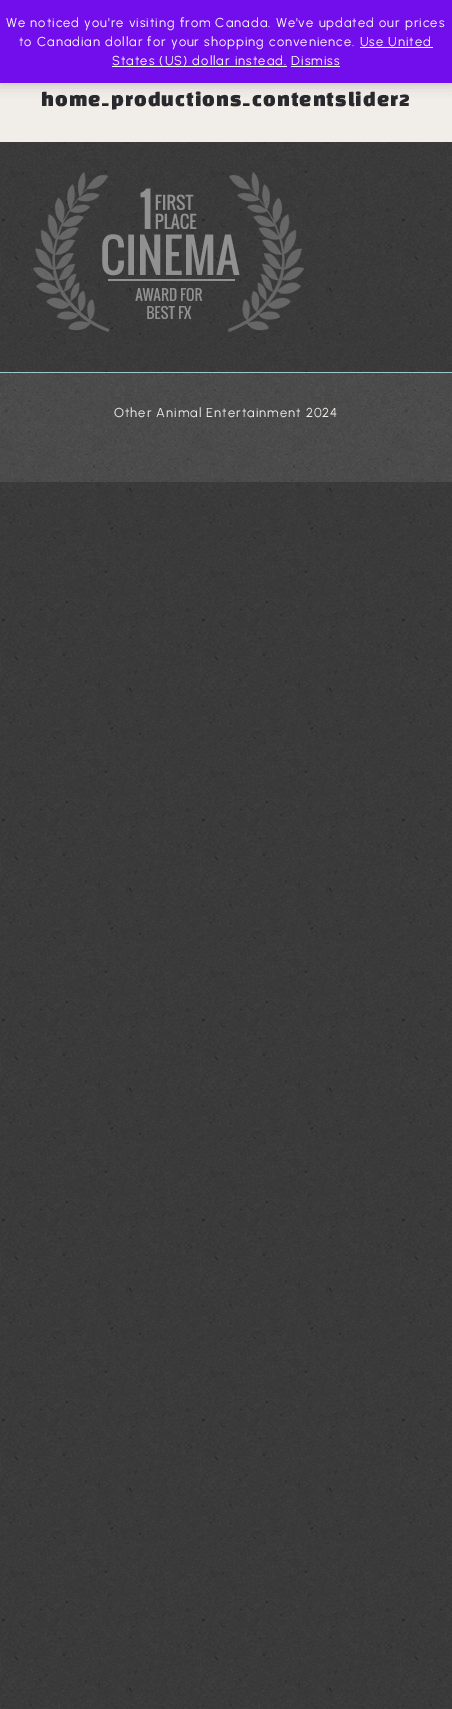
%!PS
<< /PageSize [452 1709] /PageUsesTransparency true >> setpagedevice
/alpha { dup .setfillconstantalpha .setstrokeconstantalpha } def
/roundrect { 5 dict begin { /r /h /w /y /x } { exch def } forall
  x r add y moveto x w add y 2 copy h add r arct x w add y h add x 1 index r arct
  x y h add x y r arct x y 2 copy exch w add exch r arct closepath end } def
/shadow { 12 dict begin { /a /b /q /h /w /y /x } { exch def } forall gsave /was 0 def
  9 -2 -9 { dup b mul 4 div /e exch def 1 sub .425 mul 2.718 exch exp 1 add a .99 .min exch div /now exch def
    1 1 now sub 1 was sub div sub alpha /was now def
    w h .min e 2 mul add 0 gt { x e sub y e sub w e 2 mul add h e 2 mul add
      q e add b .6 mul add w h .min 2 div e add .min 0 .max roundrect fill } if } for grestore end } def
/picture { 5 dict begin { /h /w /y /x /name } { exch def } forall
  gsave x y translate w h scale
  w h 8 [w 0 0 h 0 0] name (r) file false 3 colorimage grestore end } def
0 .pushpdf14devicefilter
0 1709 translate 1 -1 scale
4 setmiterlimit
1 setgray
0 0 452 1709 rectfill
(img1.rgb) 0 142 452 1567 picture
0.945 0.929 0.914 setrgbcolor
0 83 452 59 rectfill
0 setgray
0 1 452 83 0 6.5 0.2 shadow
0.447 0.055 0.925 setrgbcolor
0 0 452 83 rectfill
/Urbanist-Regular [13 0 0 -13 0 0] selectfont
0.988 0.984 0.996 setrgbcolor
6 27 moveto 1 0 (We noticed you're visiting from Canada. We've updated our prices) ashow
19 46 moveto 1 0 (to Canadian dollar for your shopping convenience. Use United) ashow
112 65 moveto 1 0 (States \(US\) dollar instead. Dismiss) ashow
360 47 73 1 rectfill
112 66 175 1 rectfill
291 66 49 1 rectfill
/BlackHanSans-Black [18 0 0 -18 0 0] selectfont
0.161 0.157 0.176 setrgbcolor
41 106 moveto 1 0 (home_productions_contentslider2) ashow
(img2.rgb) 33 172 271 160 picture
(img3.rgb) 0 373 452 109 picture
0.631 0.784 0.788 setrgbcolor
0 372 452 1 rectfill
/Urbanist-Regular [13 0 0 -13 0 0] selectfont
0.945 0.929 0.914 setrgbcolor
114 417 moveto 1 0 (Other Animal Entertainment 2024) ashow
.poppdf14devicefilter showpage
